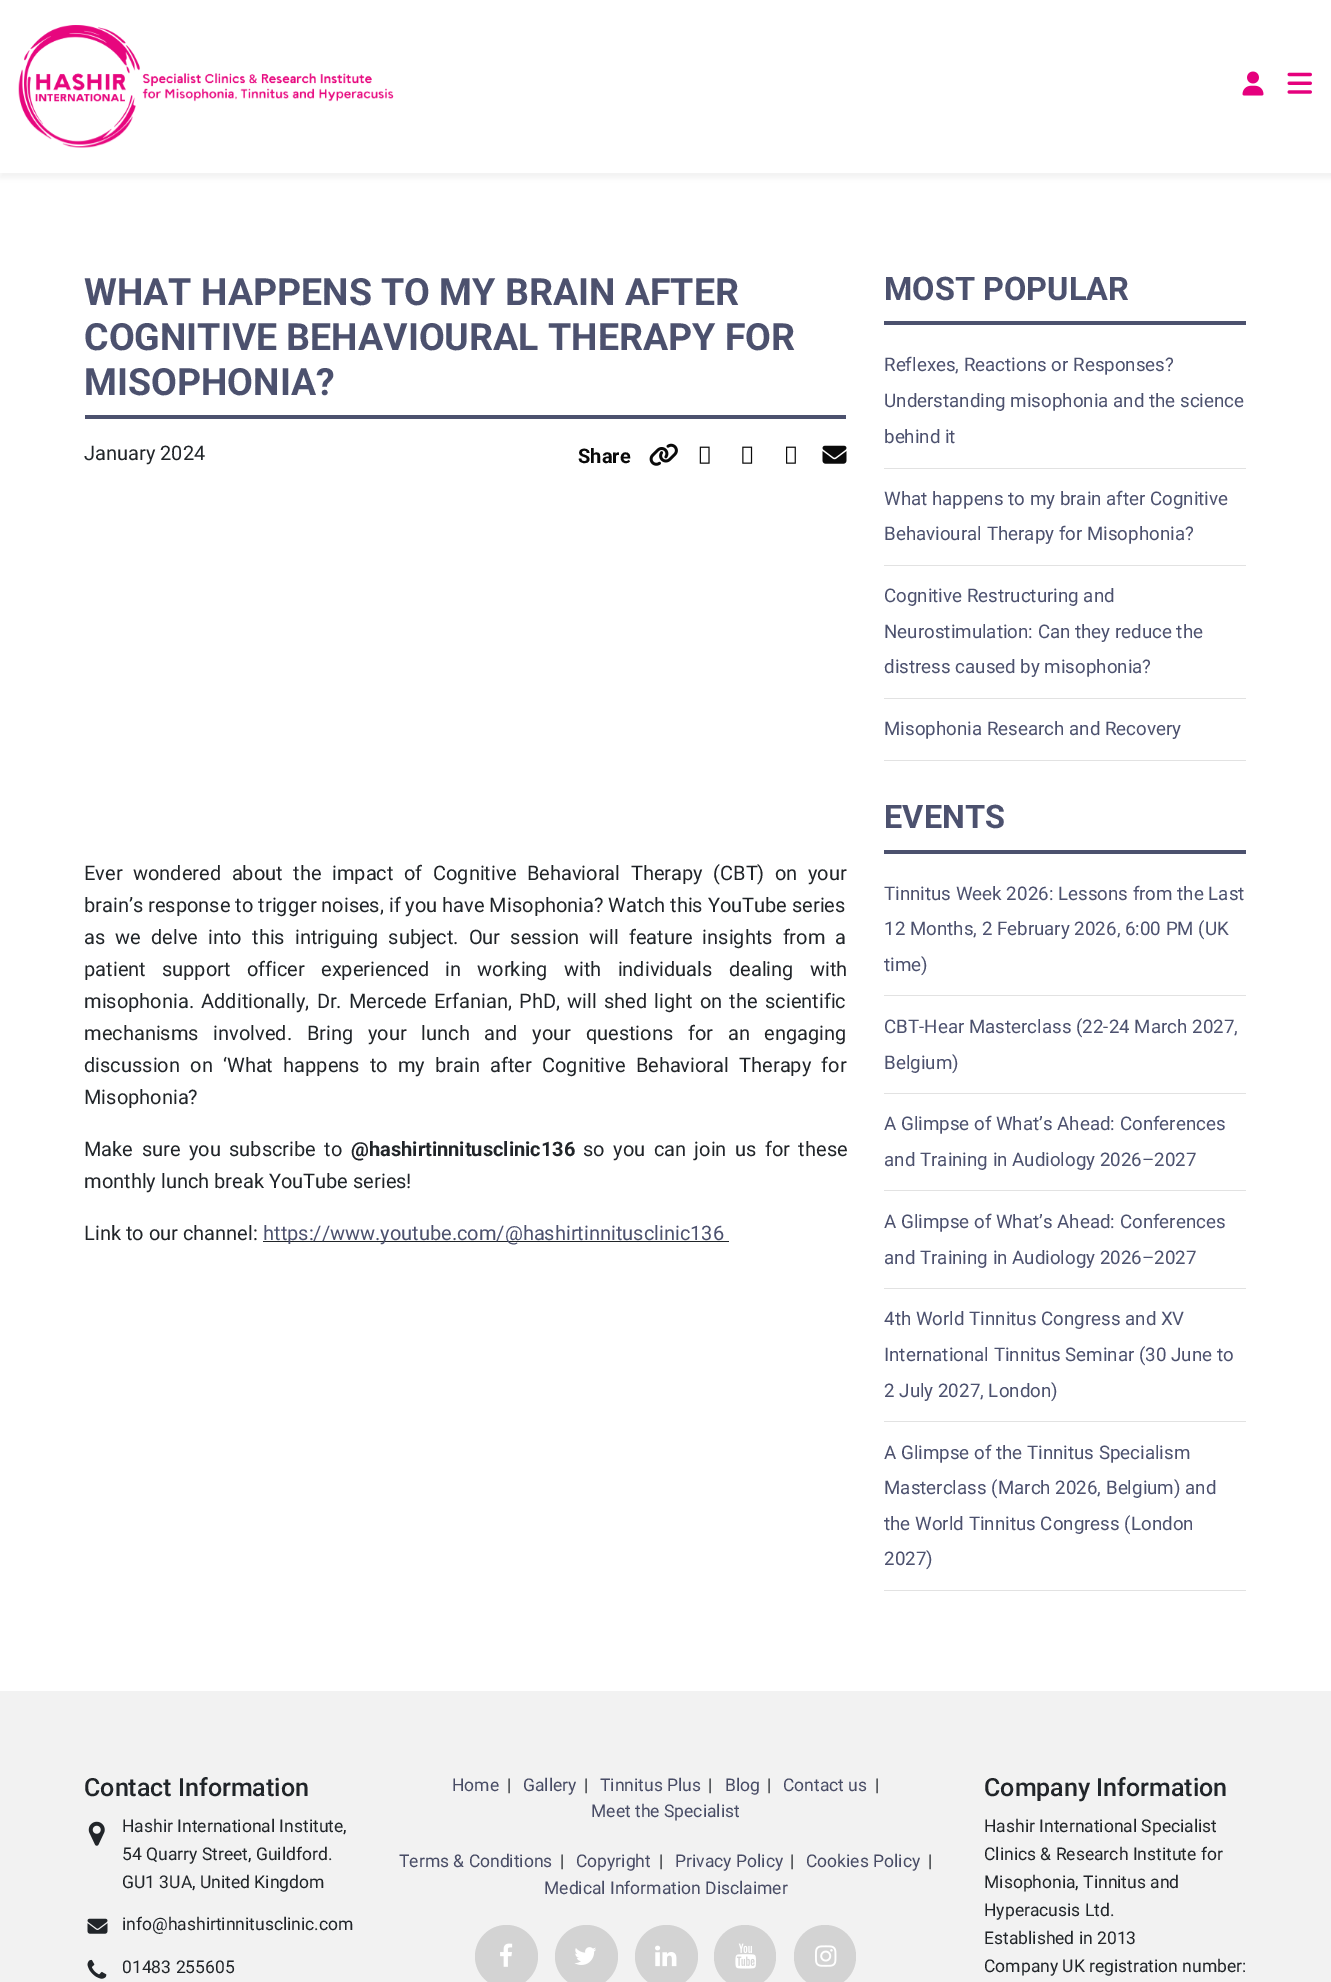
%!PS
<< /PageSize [1331 1982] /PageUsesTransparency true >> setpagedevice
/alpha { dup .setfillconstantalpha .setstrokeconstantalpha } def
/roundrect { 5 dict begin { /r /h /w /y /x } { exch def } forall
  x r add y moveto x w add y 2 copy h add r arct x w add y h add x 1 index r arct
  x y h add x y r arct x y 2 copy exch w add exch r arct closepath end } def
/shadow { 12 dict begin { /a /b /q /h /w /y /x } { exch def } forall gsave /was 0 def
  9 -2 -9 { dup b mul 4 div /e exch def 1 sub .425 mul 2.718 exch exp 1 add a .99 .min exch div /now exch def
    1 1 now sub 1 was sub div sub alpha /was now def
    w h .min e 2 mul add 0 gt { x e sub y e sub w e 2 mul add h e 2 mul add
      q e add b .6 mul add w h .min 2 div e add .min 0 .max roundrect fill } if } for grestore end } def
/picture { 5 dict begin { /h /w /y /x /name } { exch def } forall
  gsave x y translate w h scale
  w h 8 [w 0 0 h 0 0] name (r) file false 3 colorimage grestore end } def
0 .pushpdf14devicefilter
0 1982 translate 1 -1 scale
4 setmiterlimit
1 setgray
0 0 1331 1982 rectfill
0.749 setgray
0 0 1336 178 0 2.5 0.2 shadow
1 setgray
0 0 1331 173 rectfill
(img1.rgb) 18 25 376 123 picture
(img2.rgb) 1242 71 22 25 picture
(img3.rgb) 1287 72 25 22 picture
0.298 0.318 0.431 setrgbcolor
85 415 761 4 rectfill
/Roboto-Bold [37.5 0 0 -37.5 0 0] selectfont
84 305 moveto (WHAT HAPPENS TO MY BRAIN AFTER) show
84 350 moveto (COGNITIVE BEHAVIOURAL THERAPY FOR) show
84 395 moveto (MISOPHONIA?) show
/Roboto-Regular [20 0 0 -20 0 0] selectfont
0.129 0.145 0.161 setrgbcolor
84 460 moveto (January 2024) show
/Roboto-Bold [20 0 0 -20 0 0] selectfont
0.039 setgray
578 463 moveto (Share) show
(img4.rgb) 649 443 29 23 picture
(img5.rgb) 699 446 11 18 picture
(img6.rgb) 742 446 11 18 picture
(img7.rgb) 786 446 10 18 picture
(img8.rgb) 822 445 25 19 picture
/Roboto-Regular [20 0 0 -20 0 0] selectfont
0.129 0.145 0.161 setrgbcolor
84 880 moveto 5.6 0 32 (Ever wondered about the impact of Cognitive Behavioral Therapy \(CBT\) on your) widthshow
84 912 moveto (brain’s response to trigger noises, if you have Misophonia? Watch this YouTube series) show
84 944 moveto 5.1 0 32 (as we delve into this intriguing subject. Our session will feature insights from a) widthshow
84 976 moveto 11.25 0 32 (patient support officer experienced in working with individuals dealing with) widthshow
84 1008 moveto 2.25 0 32 (misophonia. Additionally, Dr. Mercede Erfanian, PhD, will shed light on the scientific) widthshow
84 1040 moveto 9.75 0 32 (mechanisms involved. Bring your lunch and your questions for an engaging) widthshow
84 1072 moveto 5.25 0 32 (discussion on ‘What happens to my brain after Cognitive Behavioral Therapy for) widthshow
84 1104 moveto (Misophonia?) show
84 1156 moveto 3.5 0 32 (Make sure you subscribe to) widthshow
/Roboto-Bold [20 0 0 -20 0 0] selectfont
351 1156 moveto (@hashirtinnitusclinic136) show
/Roboto-Regular [20 0 0 -20 0 0] selectfont
583 1156 moveto 3.5 0 32 (so you can join us for these) widthshow
84 1188 moveto (monthly lunch break YouTube series!) show
84 1240 moveto (Link to our channel:) show
263 1241 466 1 rectfill
0.298 0.318 0.431 setrgbcolor
263 1240 moveto (https://www.youtube.com/@hashirtinnitusclinic136) show
884 321 362 4 rectfill
/Roboto-Bold [32.5 0 0 -32.5 0 0] selectfont
884 300 moveto (MOST POPULAR) show
0.886 setgray
884 468 362 1 rectfill
/Roboto-Regular [18.75 0 0 -18.75 0 0] selectfont
0.298 0.318 0.431 setrgbcolor
884 371 moveto (Reflexes, Reactions or Responses?) show
884 407 moveto (Understanding misophonia and the science) show
884 443 moveto (behind it) show
0.886 setgray
884 565 362 1 rectfill
0.298 0.318 0.431 setrgbcolor
884 505 moveto (What happens to my brain after Cognitive) show
884 540 moveto (Behavioural Therapy for Misophonia?) show
0.886 setgray
884 698 362 1 rectfill
0.298 0.318 0.431 setrgbcolor
884 602 moveto (Cognitive Restructuring and) show
884 638 moveto (Neurostimulation: Can they reduce the) show
884 673 moveto (distress caused by misophonia?) show
0.886 setgray
884 760 362 1 rectfill
0.298 0.318 0.431 setrgbcolor
884 735 moveto (Misophonia Research and Recovery) show
884 850 362 4 rectfill
/Roboto-Bold [32.5 0 0 -32.5 0 0] selectfont
884 828 moveto (EVENTS) show
0.886 setgray
884 995 362 1 rectfill
/Roboto-Regular [18.75 0 0 -18.75 0 0] selectfont
0.298 0.318 0.431 setrgbcolor
884 900 moveto (Tinnitus Week 2026: Lessons from the Last) show
884 935 moveto (12 Months, 2 February 2026, 6:00 PM \(UK) show
884 971 moveto (time\)) show
0.886 setgray
884 1093 362 1 rectfill
0.298 0.318 0.431 setrgbcolor
884 1033 moveto (CBT-Hear Masterclass \(22-24 March 2027,) show
884 1069 moveto (Belgium\)) show
0.886 setgray
884 1190 362 1 rectfill
0.298 0.318 0.431 setrgbcolor
884 1130 moveto (A Glimpse of What’s Ahead: Conferences) show
884 1166 moveto (and Training in Audiology 2026–2027) show
0.886 setgray
884 1288 362 1 rectfill
0.298 0.318 0.431 setrgbcolor
884 1228 moveto (A Glimpse of What’s Ahead: Conferences) show
884 1264 moveto (and Training in Audiology 2026–2027) show
0.886 setgray
884 1421 362 1 rectfill
0.298 0.318 0.431 setrgbcolor
884 1325 moveto (4th World Tinnitus Congress and XV) show
884 1361 moveto (International Tinnitus Seminar \(30 June to) show
884 1397 moveto (2 July 2027, London\)) show
0.886 setgray
884 1590 362 1 rectfill
0.298 0.318 0.431 setrgbcolor
884 1459 moveto (A Glimpse of the Tinnitus Specialism) show
884 1494 moveto (Masterclass \(March 2026, Belgium\) and) show
884 1530 moveto (the World Tinnitus Congress \(London) show
884 1565 moveto (2027\)) show
0.949 setgray
0 1691 1331 291 rectfill
/Roboto-Medium [25 0 0 -25 0 0] selectfont
0.129 0.145 0.161 setrgbcolor
84 1796 moveto (Contact Information) show
(img9.rgb) 88 1821 17 25 picture
/Roboto-Regular [17.5 0 0 -17.5 0 0] selectfont
122 1832 moveto (Hashir International Institute,) show
122 1860 moveto (54 Quarry Street, Guildford.) show
122 1888 moveto (GU1 3UA, United Kingdom) show
(img10.rgb) 87 1918 21 16 picture
122 1930 moveto (info@hashirtinnitusclinic.com) show
(img11.rgb) 87 1959 20 20 picture
122 1973 moveto (01483 255605) show
0.282 0.298 0.396 setrgbcolor
452 1791 moveto (Home) show
0.129 0.145 0.161 setrgbcolor
507 1791 moveto (|) show
0.282 0.298 0.396 setrgbcolor
523 1791 moveto (Gallery) show
0.129 0.145 0.161 setrgbcolor
584 1791 moveto (|) show
0.282 0.298 0.396 setrgbcolor
600 1791 moveto (Tinnitus Plus) show
0.129 0.145 0.161 setrgbcolor
708 1791 moveto (|) show
0.282 0.298 0.396 setrgbcolor
725 1791 moveto (Blog) show
0.129 0.145 0.161 setrgbcolor
767 1791 moveto (|) show
0.282 0.298 0.396 setrgbcolor
783 1791 moveto (Contact us) show
0.129 0.145 0.161 setrgbcolor
875 1791 moveto (|) show
0.282 0.298 0.396 setrgbcolor
591 1817 moveto (Meet the Specialist) show
399 1867 moveto (Terms & Conditions) show
0.129 0.145 0.161 setrgbcolor
560 1867 moveto (|) show
0.282 0.298 0.396 setrgbcolor
576 1867 moveto (Copyright) show
0.129 0.145 0.161 setrgbcolor
659 1867 moveto (|) show
0.282 0.298 0.396 setrgbcolor
675 1867 moveto (Privacy Policy) show
0.129 0.145 0.161 setrgbcolor
790 1867 moveto (|) show
0.282 0.298 0.396 setrgbcolor
806 1867 moveto (Cookies Policy) show
0.129 0.145 0.161 setrgbcolor
928 1867 moveto (|) show
0.282 0.298 0.396 setrgbcolor
544 1894 moveto (Medical Information Disclaimer) show
0.827 setgray
newpath 506.5 1956.5 31.5 0 360 arc closepath fill
(img12.rgb) 500 1943 13 24 picture
newpath 586.5 1956.5 31.5 0 360 arc closepath fill
(img13.rgb) 574 1947 22 18 picture
newpath 666.5 1956.5 31.5 0 360 arc closepath fill
(img14.rgb) 655 1945 22 22 picture
714 1925 62 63 31 roundrect fill
(img15.rgb) 735 1943 21 26 picture
794 1925 62 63 31 roundrect fill
(img16.rgb) 815 1945 22 22 picture
/Roboto-Medium [25 0 0 -25 0 0] selectfont
0.129 0.145 0.161 setrgbcolor
984 1796 moveto (Company Information) show
/Roboto-Regular [17.5 0 0 -17.5 0 0] selectfont
984 1832 moveto (Hashir International Specialist) show
984 1860 moveto (Clinics & Research Institute for) show
984 1888 moveto (Misophonia, Tinnitus and) show
984 1916 moveto (Hyperacusis Ltd.) show
984 1944 moveto (Established in 2013) show
984 1972 moveto (Company UK registration number:) show
.poppdf14devicefilter showpage
